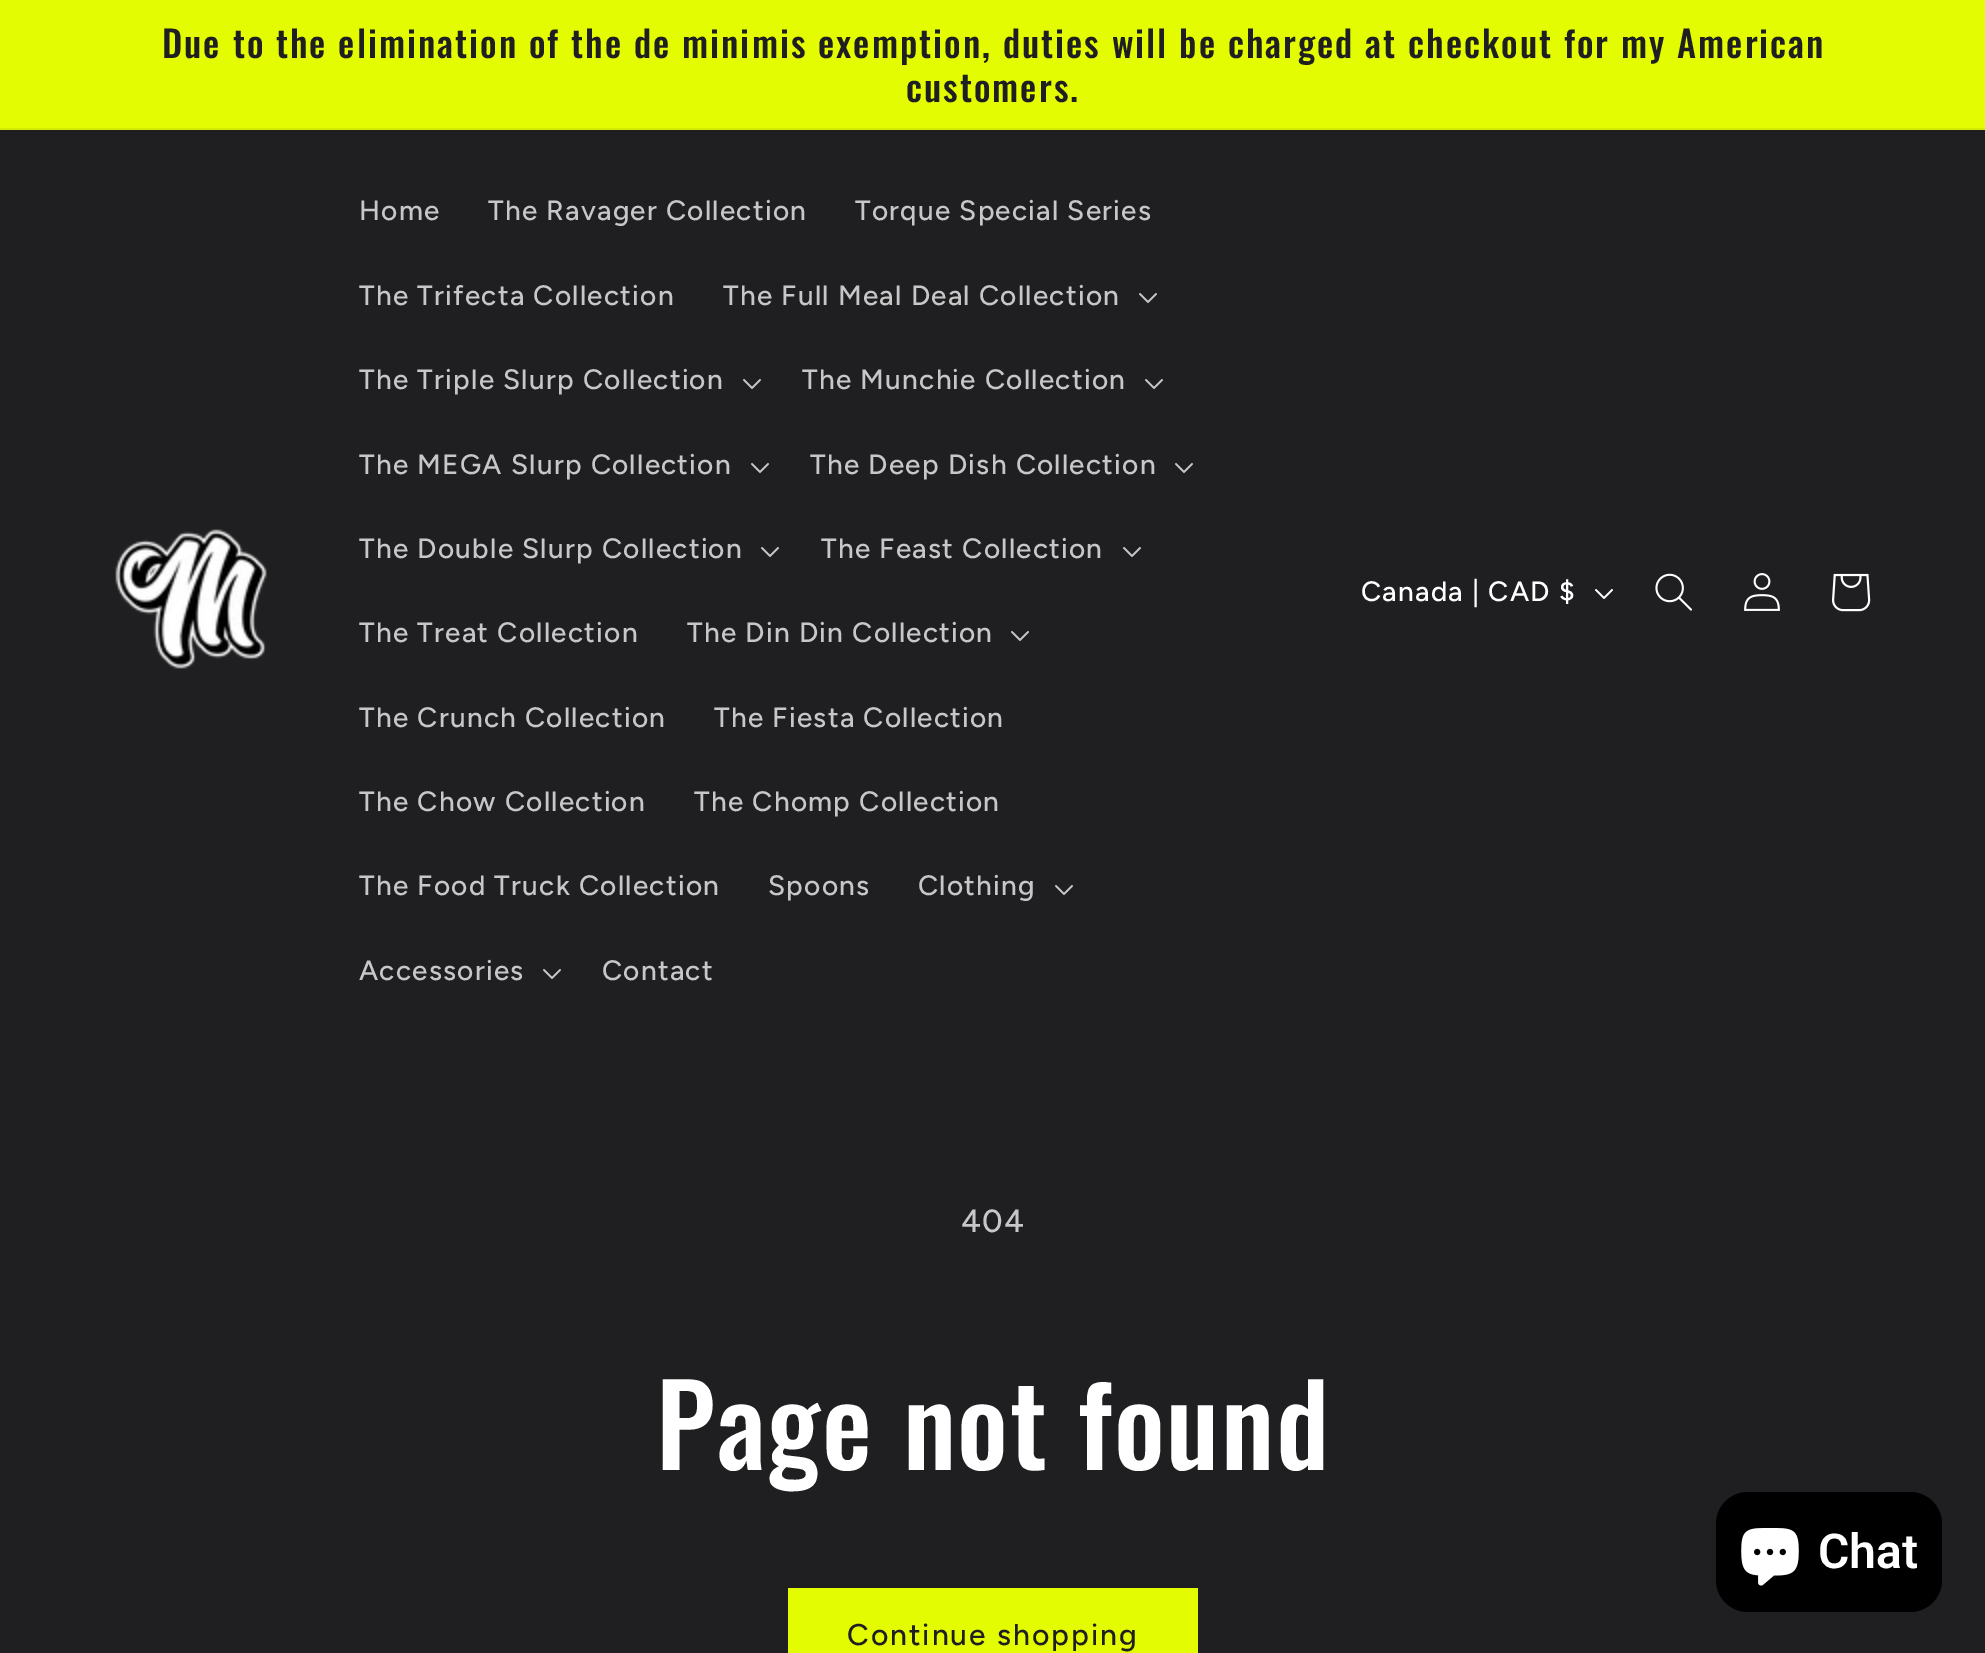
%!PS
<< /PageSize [1985 1653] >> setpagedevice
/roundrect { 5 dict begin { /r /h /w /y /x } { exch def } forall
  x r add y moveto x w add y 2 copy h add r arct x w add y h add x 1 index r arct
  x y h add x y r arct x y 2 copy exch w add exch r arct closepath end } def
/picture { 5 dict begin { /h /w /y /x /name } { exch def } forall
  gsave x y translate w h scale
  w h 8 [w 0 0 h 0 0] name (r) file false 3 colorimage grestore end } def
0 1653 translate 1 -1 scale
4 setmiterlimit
0.122 0.122 0.129 setrgbcolor
0 0 1985 1653 rectfill
0.89 0.988 0.008 setrgbcolor
0 0 1985 128 rectfill
0.827 0.918 0.016 setrgbcolor
0 128 1985 2 rectfill
/Oswald-Medium [36.4 0 0 -36.4 0 0] selectfont
0.122 0.122 0.129 setrgbcolor
162 58 moveto 2 0 (Due to the elimination of the de minimis exemption, duties will be charged at checkout for my American) ashow
906 102 moveto 2 0 (customers.) ashow
(img1.rgb) 115 529 152 140 picture
/Figtree-Medium [28 0 0 -28 0 0] selectfont
0.78 0.78 0.784 setrgbcolor
359 220 moveto 1.2 0 (Home) ashow
488 220 moveto 1.2 0 (The Ravager Collection) ashow
855 220 moveto 1.2 0 (Torque Special Series) ashow
359 305 moveto 1.2 0 (The Trifecta Collection) ashow
723 305 moveto 1.2 0 (The Full Meal Deal Collection) ashow
(img2.rgb) 1139 293 18 10 picture
359 389 moveto 1.2 0 (The Triple Slurp Collection) ashow
(img2.rgb) 743 379 18 10 picture
802 389 moveto 1.2 0 (The Munchie Collection) ashow
(img2.rgb) 1145 379 18 10 picture
359 474 moveto 1.2 0 (The MEGA Slurp Collection) ashow
(img2.rgb) 751 463 18 10 picture
810 474 moveto 1.2 0 (The Deep Dish Collection) ashow
(img2.rgb) 1175 463 18 10 picture
359 558 moveto 1.2 0 (The Double Slurp Collection) ashow
(img2.rgb) 761 547 18 10 picture
821 558 moveto 1.2 0 (The Feast Collection) ashow
(img2.rgb) 1123 547 18 10 picture
359 642 moveto 1.2 0 (The Treat Collection) ashow
687 642 moveto 1.2 0 (The Din Din Collection) ashow
(img2.rgb) 1011 631 18 10 picture
359 727 moveto 1.2 0 (The Crunch Collection) ashow
714 727 moveto 1.2 0 (The Fiesta Collection) ashow
359 811 moveto 1.2 0 (The Chow Collection) ashow
694 811 moveto 1.2 0 (The Chomp Collection) ashow
359 895 moveto 1.2 0 (The Food Truck Collection) ashow
768 895 moveto 1.2 0 (Spoons) ashow
918 895 moveto 1.2 0 (Clothing) ashow
(img2.rgb) 1055 885 18 10 picture
359 980 moveto 1.2 0 (Accessories) ashow
(img2.rgb) 543 969 18 10 picture
602 980 moveto 1.2 0 (Contact) ashow
1 setgray
1361 601 moveto 1.2 0 (Canada | CAD $) ashow
(img3.rgb) 1595 589 18 10 picture
(img4.rgb) 1655 573 37 38 picture
(img5.rgb) 1744 573 36 38 picture
(img6.rgb) 1832 573 39 39 picture
/Figtree-Medium [32 0 0 -32 0 0] selectfont
0.78 0.78 0.784 setrgbcolor
961 1232 moveto 1.2 0 (404) ashow
/Oswald-Medium [112 0 0 -112 0 0] selectfont
1 setgray
656 1470 moveto 1.75 0 (Page not found) ashow
0.89 0.988 0.008 setrgbcolor
788 1588 410 65 rectfill
/Figtree-Medium [30 0 0 -30 0 0] selectfont
0.122 0.122 0.129 setrgbcolor
847 1645 moveto 2 0 (Continue shopping) ashow
0 setgray
1716 1492 226 120 32 roundrect fill
(img7.rgb) 1741 1528 58 58 picture
/Roboto-SemiBold [48 0 0 -48 0 0] selectfont
1 setgray
1818 1568 moveto (Chat) show
showpage
